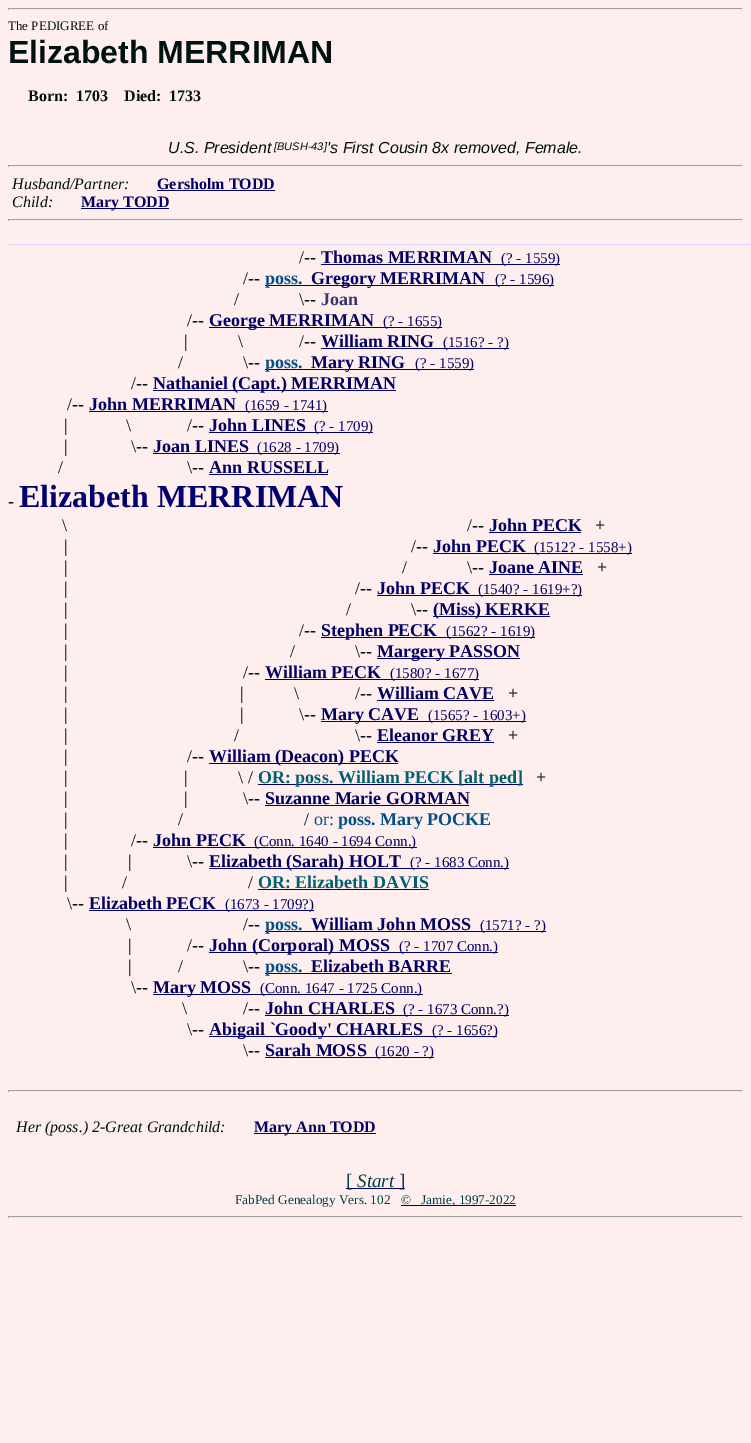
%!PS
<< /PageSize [751 1443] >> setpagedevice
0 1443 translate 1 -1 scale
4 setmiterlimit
1 0.933 0.933 setrgbcolor
0 0 751 1443 rectfill
0.624 setgray
8 8 735 1 rectfill
0.933 setgray
742 8 1 2 rectfill
8 9 735 1 rectfill
0.624 setgray
8 8 1 2 rectfill
/LiberationSerif-Regular [13 0 0 -13 0 0] selectfont
0 0.067 0.067 setrgbcolor
8 30 moveto (The PEDIGREE of) show
/LiberationSans-Bold [32 0 0 -32 0 0] selectfont
8 63 moveto (Elizabeth MERRIMAN) show
/LiberationSerif-Bold [16 0 0 -16 0 0] selectfont
28 101 moveto (Born:) show
76 101 moveto (1703) show
124 101 moveto (Died:) show
169 101 moveto (1733) show
/LiberationSans-Italic [16 0 0 -16 0 0] selectfont
168 153 moveto (U.S. President) show
/LiberationSans-Italic [11 0 0 -11 0 0] selectfont
274 150 moveto ([BUSH-43]) show
/LiberationSans-Italic [16 0 0 -16 0 0] selectfont
327 153 moveto ('s First Cousin 8x removed, Female.) show
0.624 setgray
8 165 735 1 rectfill
0.933 setgray
742 165 1 2 rectfill
8 166 735 1 rectfill
0.624 setgray
8 165 1 2 rectfill
/LiberationSerif-Italic [16 0 0 -16 0 0] selectfont
0 0.067 0.067 setrgbcolor
12 189 moveto (Husband/Partner:) show
/LiberationSerif-Bold [16 0 0 -16 0 0] selectfont
0 0 0.4 setrgbcolor
157 189 moveto (Gersholm TODD) show
157 190 118 1 rectfill
/LiberationSerif-Italic [16 0 0 -16 0 0] selectfont
0 0.067 0.067 setrgbcolor
12 207 moveto (Child:) show
0 0 0.4 setrgbcolor
81 208 88 1 rectfill
/LiberationSerif-Bold [16 0 0 -16 0 0] selectfont
81 207 moveto (Mary TODD) show
0.624 setgray
8 219 735 1 rectfill
0.933 setgray
742 219 1 2 rectfill
8 220 735 1 rectfill
0.624 setgray
8 219 1 2 rectfill
0.867 0.867 1 setrgbcolor
8 243 moveto (_____________________________________________________________________________________________) show
/LiberationSerif-Regular [18 0 0 -18 0 0] selectfont
0 0.067 0.067 setrgbcolor
299 263 moveto (/--) show
/LiberationSerif-Bold [18 0 0 -18 0 0] selectfont
0 0 0.4 setrgbcolor
321 263 moveto (Thomas MERRIMAN) show
321 264 239 1 rectfill
/LiberationSerif-Regular [15 0 0 -15 0 0] selectfont
501 263 moveto (\(? - 1559\)) show
/LiberationSerif-Regular [18 0 0 -18 0 0] selectfont
0 0.067 0.067 setrgbcolor
243 284 moveto (/--) show
0 0 0.4 setrgbcolor
265 285 289 1 rectfill
/LiberationSerif-Bold [18 0 0 -18 0 0] selectfont
0 0.314 0.533 setrgbcolor
265 284 moveto (poss.) show
0 0 0.4 setrgbcolor
311 284 moveto (Gregory MERRIMAN) show
/LiberationSerif-Regular [15 0 0 -15 0 0] selectfont
495 284 moveto (\(? - 1596\)) show
/LiberationSerif-Regular [18 0 0 -18 0 0] selectfont
0 0.067 0.067 setrgbcolor
234 305 moveto (/) show
299 305 moveto (\\--) show
/LiberationSerif-Bold [18 0 0 -18 0 0] selectfont
0.22 0.22 0.408 setrgbcolor
321 305 moveto (Joan) show
/LiberationSerif-Regular [18 0 0 -18 0 0] selectfont
0 0.067 0.067 setrgbcolor
187 326 moveto (/--) show
0 0 0.4 setrgbcolor
209 327 233 1 rectfill
/LiberationSerif-Bold [18 0 0 -18 0 0] selectfont
209 326 moveto (George MERRIMAN) show
/LiberationSerif-Regular [15 0 0 -15 0 0] selectfont
383 326 moveto (\(? - 1655\)) show
/LiberationSerif-Regular [18 0 0 -18 0 0] selectfont
0 0.067 0.067 setrgbcolor
184 347 moveto (|) show
238 347 moveto (\\) show
299 347 moveto (/--) show
/LiberationSerif-Bold [18 0 0 -18 0 0] selectfont
0 0 0.4 setrgbcolor
321 347 moveto (William RING) show
321 348 188 1 rectfill
/LiberationSerif-Regular [15 0 0 -15 0 0] selectfont
443 347 moveto (\(1516? - ?\)) show
/LiberationSerif-Regular [18 0 0 -18 0 0] selectfont
0 0.067 0.067 setrgbcolor
178 368 moveto (/) show
243 368 moveto (\\--) show
0 0 0.4 setrgbcolor
265 369 209 1 rectfill
/LiberationSerif-Bold [18 0 0 -18 0 0] selectfont
0 0.314 0.533 setrgbcolor
265 368 moveto (poss.) show
0 0 0.4 setrgbcolor
311 368 moveto (Mary RING) show
/LiberationSerif-Regular [15 0 0 -15 0 0] selectfont
415 368 moveto (\(? - 1559\)) show
/LiberationSerif-Regular [18 0 0 -18 0 0] selectfont
0 0.067 0.067 setrgbcolor
131 389 moveto (/--) show
0 0 0.4 setrgbcolor
153 390 243 1 rectfill
/LiberationSerif-Bold [18 0 0 -18 0 0] selectfont
153 389 moveto (Nathaniel \(Capt.\) MERRIMAN) show
/LiberationSerif-Regular [18 0 0 -18 0 0] selectfont
0 0.067 0.067 setrgbcolor
67 410 moveto (/--) show
/LiberationSerif-Bold [18 0 0 -18 0 0] selectfont
0 0 0.4 setrgbcolor
89 410 moveto (John MERRIMAN) show
89 411 239 1 rectfill
/LiberationSerif-Regular [15 0 0 -15 0 0] selectfont
245 410 moveto (\(1659 - 1741\)) show
/LiberationSerif-Regular [18 0 0 -18 0 0] selectfont
0 0.067 0.067 setrgbcolor
64 431 moveto (|) show
126 431 moveto (\\) show
187 431 moveto (/--) show
/LiberationSerif-Bold [18 0 0 -18 0 0] selectfont
0 0 0.4 setrgbcolor
209 431 moveto (John LINES) show
209 432 164 1 rectfill
/LiberationSerif-Regular [15 0 0 -15 0 0] selectfont
314 431 moveto (\(? - 1709\)) show
/LiberationSerif-Regular [18 0 0 -18 0 0] selectfont
0 0.067 0.067 setrgbcolor
64 452 moveto (|) show
131 452 moveto (\\--) show
/LiberationSerif-Bold [18 0 0 -18 0 0] selectfont
0 0 0.4 setrgbcolor
153 452 moveto (Joan LINES) show
153 453 187 1 rectfill
/LiberationSerif-Regular [15 0 0 -15 0 0] selectfont
257 452 moveto (\(1628 - 1709\)) show
/LiberationSerif-Regular [18 0 0 -18 0 0] selectfont
0 0.067 0.067 setrgbcolor
58 473 moveto (/) show
187 473 moveto (\\--) show
/LiberationSerif-Bold [18 0 0 -18 0 0] selectfont
0 0 0.4 setrgbcolor
209 473 moveto (Ann RUSSELL) show
209 474 119 1 rectfill
/LiberationSerif-Regular [18 0 0 -18 0 0] selectfont
0 0.067 0.067 setrgbcolor
8 507 moveto (-) show
/LiberationSerif-Bold [32 0 0 -32 0 0] selectfont
0 0 0.439 setrgbcolor
19 507 moveto (Elizabeth MERRIMAN) show
/LiberationSerif-Regular [18 0 0 -18 0 0] selectfont
0 0.067 0.067 setrgbcolor
62 531 moveto (\\) show
467 531 moveto (/--) show
/LiberationSerif-Bold [18 0 0 -18 0 0] selectfont
0 0 0.4 setrgbcolor
489 531 moveto (John PECK) show
489 532 92 1 rectfill
/LiberationSerif-Regular [18 0 0 -18 0 0] selectfont
0 0.067 0.067 setrgbcolor
595 531 moveto (+) show
64 552 moveto (|) show
411 552 moveto (/--) show
/LiberationSerif-Bold [18 0 0 -18 0 0] selectfont
0 0 0.4 setrgbcolor
433 552 moveto (John PECK) show
433 553 199 1 rectfill
/LiberationSerif-Regular [15 0 0 -15 0 0] selectfont
534 552 moveto (\(1512? - 1558+\)) show
/LiberationSerif-Regular [18 0 0 -18 0 0] selectfont
0 0.067 0.067 setrgbcolor
64 573 moveto (|) show
402 573 moveto (/) show
467 573 moveto (\\--) show
/LiberationSerif-Bold [18 0 0 -18 0 0] selectfont
0 0 0.4 setrgbcolor
489 573 moveto (Joane AINE) show
489 574 94 1 rectfill
/LiberationSerif-Regular [18 0 0 -18 0 0] selectfont
0 0.067 0.067 setrgbcolor
597 573 moveto (+) show
64 594 moveto (|) show
355 594 moveto (/--) show
/LiberationSerif-Bold [18 0 0 -18 0 0] selectfont
0 0 0.4 setrgbcolor
377 594 moveto (John PECK) show
377 595 205 1 rectfill
/LiberationSerif-Regular [15 0 0 -15 0 0] selectfont
478 594 moveto (\(1540? - 1619+?\)) show
/LiberationSerif-Regular [18 0 0 -18 0 0] selectfont
0 0.067 0.067 setrgbcolor
64 615 moveto (|) show
346 615 moveto (/) show
411 615 moveto (\\--) show
0 0 0.4 setrgbcolor
433 616 117 1 rectfill
/LiberationSerif-Bold [18 0 0 -18 0 0] selectfont
433 615 moveto (\(Miss\) KERKE) show
/LiberationSerif-Regular [18 0 0 -18 0 0] selectfont
0 0.067 0.067 setrgbcolor
64 636 moveto (|) show
299 636 moveto (/--) show
0 0 0.4 setrgbcolor
321 637 214 1 rectfill
/LiberationSerif-Bold [18 0 0 -18 0 0] selectfont
321 636 moveto (Stephen PECK) show
/LiberationSerif-Regular [15 0 0 -15 0 0] selectfont
446 636 moveto (\(1562? - 1619\)) show
/LiberationSerif-Regular [18 0 0 -18 0 0] selectfont
0 0.067 0.067 setrgbcolor
64 657 moveto (|) show
290 657 moveto (/) show
355 657 moveto (\\--) show
0 0 0.4 setrgbcolor
377 658 143 1 rectfill
/LiberationSerif-Bold [18 0 0 -18 0 0] selectfont
377 657 moveto (Margery PASSON) show
/LiberationSerif-Regular [18 0 0 -18 0 0] selectfont
0 0.067 0.067 setrgbcolor
64 678 moveto (|) show
243 678 moveto (/--) show
/LiberationSerif-Bold [18 0 0 -18 0 0] selectfont
0 0 0.4 setrgbcolor
265 678 moveto (William PECK) show
265 679 214 1 rectfill
/LiberationSerif-Regular [15 0 0 -15 0 0] selectfont
390 678 moveto (\(1580? - 1677\)) show
/LiberationSerif-Regular [18 0 0 -18 0 0] selectfont
0 0.067 0.067 setrgbcolor
64 699 moveto (|) show
240 699 moveto (|) show
294 699 moveto (\\) show
355 699 moveto (/--) show
/LiberationSerif-Bold [18 0 0 -18 0 0] selectfont
0 0 0.4 setrgbcolor
377 699 moveto (William CAVE) show
377 700 117 1 rectfill
/LiberationSerif-Regular [18 0 0 -18 0 0] selectfont
0 0.067 0.067 setrgbcolor
508 699 moveto (+) show
64 720 moveto (|) show
240 720 moveto (|) show
299 720 moveto (\\--) show
0 0 0.4 setrgbcolor
321 721 205 1 rectfill
/LiberationSerif-Bold [18 0 0 -18 0 0] selectfont
321 720 moveto (Mary CAVE) show
/LiberationSerif-Regular [15 0 0 -15 0 0] selectfont
428 720 moveto (\(1565? - 1603+\)) show
/LiberationSerif-Regular [18 0 0 -18 0 0] selectfont
0 0.067 0.067 setrgbcolor
64 741 moveto (|) show
234 741 moveto (/) show
355 741 moveto (\\--) show
/LiberationSerif-Bold [18 0 0 -18 0 0] selectfont
0 0 0.4 setrgbcolor
377 741 moveto (Eleanor GREY) show
377 742 117 1 rectfill
/LiberationSerif-Regular [18 0 0 -18 0 0] selectfont
0 0.067 0.067 setrgbcolor
508 741 moveto (+) show
64 762 moveto (|) show
187 762 moveto (/--) show
0 0 0.4 setrgbcolor
209 763 189 1 rectfill
/LiberationSerif-Bold [18 0 0 -18 0 0] selectfont
209 762 moveto (William \(Deacon\) PECK) show
/LiberationSerif-Regular [18 0 0 -18 0 0] selectfont
0 0.067 0.067 setrgbcolor
64 783 moveto (|) show
184 783 moveto (|) show
238 783 moveto (\\ /) show
0 0 0.4 setrgbcolor
258 784 265 1 rectfill
/LiberationSerif-Bold [18 0 0 -18 0 0] selectfont
0 0.376 0.439 setrgbcolor
258 783 moveto (OR: poss. William PECK [alt ped]) show
/LiberationSerif-Regular [18 0 0 -18 0 0] selectfont
0 0.067 0.067 setrgbcolor
536 783 moveto (+) show
64 804 moveto (|) show
184 804 moveto (|) show
243 804 moveto (\\--) show
/LiberationSerif-Bold [18 0 0 -18 0 0] selectfont
0 0 0.4 setrgbcolor
265 804 moveto (Suzanne Marie GORMAN) show
265 805 204 1 rectfill
/LiberationSerif-Regular [18 0 0 -18 0 0] selectfont
0 0.067 0.067 setrgbcolor
64 825 moveto (|) show
178 825 moveto (/) show
304 825 moveto (/) show
0 0.314 0.533 setrgbcolor
314 825 moveto (or:) show
/LiberationSerif-Bold [18 0 0 -18 0 0] selectfont
338 825 moveto (poss. Mary POCKE) show
/LiberationSerif-Regular [18 0 0 -18 0 0] selectfont
0 0.067 0.067 setrgbcolor
64 846 moveto (|) show
131 846 moveto (/--) show
/LiberationSerif-Bold [18 0 0 -18 0 0] selectfont
0 0 0.4 setrgbcolor
153 846 moveto (John PECK) show
153 847 264 1 rectfill
/LiberationSerif-Regular [15 0 0 -15 0 0] selectfont
254 846 moveto (\(Conn. 1640 - 1694 Conn.\)) show
/LiberationSerif-Regular [18 0 0 -18 0 0] selectfont
0 0.067 0.067 setrgbcolor
64 867 moveto (|) show
128 867 moveto (|) show
187 867 moveto (\\--) show
0 0 0.4 setrgbcolor
209 868 300 1 rectfill
/LiberationSerif-Bold [18 0 0 -18 0 0] selectfont
209 867 moveto (Elizabeth \(Sarah\) HOLT) show
/LiberationSerif-Regular [15 0 0 -15 0 0] selectfont
410 867 moveto (\(? - 1683 Conn.\)) show
/LiberationSerif-Regular [18 0 0 -18 0 0] selectfont
0 0.067 0.067 setrgbcolor
64 888 moveto (|) show
122 888 moveto (/) show
248 888 moveto (/) show
/LiberationSerif-Bold [18 0 0 -18 0 0] selectfont
0 0.376 0.439 setrgbcolor
258 888 moveto (OR: Elizabeth DAVIS) show
0 0 0.4 setrgbcolor
258 889 171 1 rectfill
/LiberationSerif-Regular [18 0 0 -18 0 0] selectfont
0 0.067 0.067 setrgbcolor
67 909 moveto (\\--) show
/LiberationSerif-Bold [18 0 0 -18 0 0] selectfont
0 0 0.4 setrgbcolor
89 909 moveto (Elizabeth PECK) show
89 910 225 1 rectfill
/LiberationSerif-Regular [15 0 0 -15 0 0] selectfont
225 909 moveto (\(1673 - 1709?\)) show
/LiberationSerif-Regular [18 0 0 -18 0 0] selectfont
0 0.067 0.067 setrgbcolor
126 930 moveto (\\) show
243 930 moveto (/--) show
0 0 0.4 setrgbcolor
265 931 281 1 rectfill
/LiberationSerif-Bold [18 0 0 -18 0 0] selectfont
0 0.314 0.533 setrgbcolor
265 930 moveto (poss.) show
0 0 0.4 setrgbcolor
311 930 moveto (William John MOSS) show
/LiberationSerif-Regular [15 0 0 -15 0 0] selectfont
480 930 moveto (\(1571? - ?\)) show
/LiberationSerif-Regular [18 0 0 -18 0 0] selectfont
0 0.067 0.067 setrgbcolor
128 951 moveto (|) show
187 951 moveto (/--) show
0 0 0.4 setrgbcolor
209 952 289 1 rectfill
/LiberationSerif-Bold [18 0 0 -18 0 0] selectfont
209 951 moveto (John \(Corporal\) MOSS) show
/LiberationSerif-Regular [15 0 0 -15 0 0] selectfont
399 951 moveto (\(? - 1707 Conn.\)) show
/LiberationSerif-Regular [18 0 0 -18 0 0] selectfont
0 0.067 0.067 setrgbcolor
128 972 moveto (|) show
178 972 moveto (/) show
243 972 moveto (\\--) show
0 0 0.4 setrgbcolor
265 973 187 1 rectfill
/LiberationSerif-Bold [18 0 0 -18 0 0] selectfont
0 0.314 0.533 setrgbcolor
265 972 moveto (poss.) show
0 0 0.4 setrgbcolor
311 972 moveto (Elizabeth BARRE) show
/LiberationSerif-Regular [18 0 0 -18 0 0] selectfont
0 0.067 0.067 setrgbcolor
131 993 moveto (\\--) show
0 0 0.4 setrgbcolor
153 994 270 1 rectfill
/LiberationSerif-Bold [18 0 0 -18 0 0] selectfont
153 993 moveto (Mary MOSS) show
/LiberationSerif-Regular [15 0 0 -15 0 0] selectfont
260 993 moveto (\(Conn. 1647 - 1725 Conn.\)) show
/LiberationSerif-Regular [18 0 0 -18 0 0] selectfont
0 0.067 0.067 setrgbcolor
182 1014 moveto (\\) show
243 1014 moveto (/--) show
/LiberationSerif-Bold [18 0 0 -18 0 0] selectfont
0 0 0.4 setrgbcolor
265 1014 moveto (John CHARLES) show
265 1015 244 1 rectfill
/LiberationSerif-Regular [15 0 0 -15 0 0] selectfont
403 1014 moveto (\(? - 1673 Conn.?\)) show
/LiberationSerif-Regular [18 0 0 -18 0 0] selectfont
0 0.067 0.067 setrgbcolor
187 1035 moveto (\\--) show
0 0 0.4 setrgbcolor
209 1036 288 1 rectfill
/LiberationSerif-Bold [18 0 0 -18 0 0] selectfont
209 1035 moveto (Abigail `Goody' CHARLES) show
/LiberationSerif-Regular [15 0 0 -15 0 0] selectfont
432 1035 moveto (\(? - 1656?\)) show
/LiberationSerif-Regular [18 0 0 -18 0 0] selectfont
0 0.067 0.067 setrgbcolor
243 1056 moveto (\\--) show
/LiberationSerif-Bold [18 0 0 -18 0 0] selectfont
0 0 0.4 setrgbcolor
265 1056 moveto (Sarah MOSS) show
265 1057 169 1 rectfill
/LiberationSerif-Regular [15 0 0 -15 0 0] selectfont
375 1056 moveto (\(1620 - ?\)) show
0.624 setgray
8 1090 735 1 rectfill
0.933 setgray
742 1090 1 2 rectfill
8 1091 735 1 rectfill
0.624 setgray
8 1090 1 2 rectfill
/LiberationSerif-Italic [16 0 0 -16 0 0] selectfont
0 0.067 0.067 setrgbcolor
16 1132 moveto (Her \(poss.\) 2-Great Grandchild:) show
0 0 0.4 setrgbcolor
254 1133 122 1 rectfill
/LiberationSerif-Bold [16 0 0 -16 0 0] selectfont
254 1132 moveto (Mary Ann TODD) show
346 1188 59 1 rectfill
/LiberationSerif-Regular [19 0 0 -19 0 0] selectfont
0 0.235 0.282 setrgbcolor
346 1187 moveto ([) show
/LiberationSerif-Italic [19 0 0 -19 0 0] selectfont
357 1187 moveto (Start) show
/LiberationSerif-Regular [19 0 0 -19 0 0] selectfont
399 1187 moveto (]) show
/LiberationSerif-Regular [13.25 0 0 -13.25 0 0] selectfont
235 1204 moveto (FabPed Genealogy Vers. 102) show
0 0 0.4 setrgbcolor
401 1205 115 1 rectfill
0 0.235 0.282 setrgbcolor
401 1204 moveto (©   Jamie, 1997-2022) show
0.624 setgray
8 1216 735 1 rectfill
0.933 setgray
742 1216 1 2 rectfill
8 1217 735 1 rectfill
0.624 setgray
8 1216 1 2 rectfill
showpage
